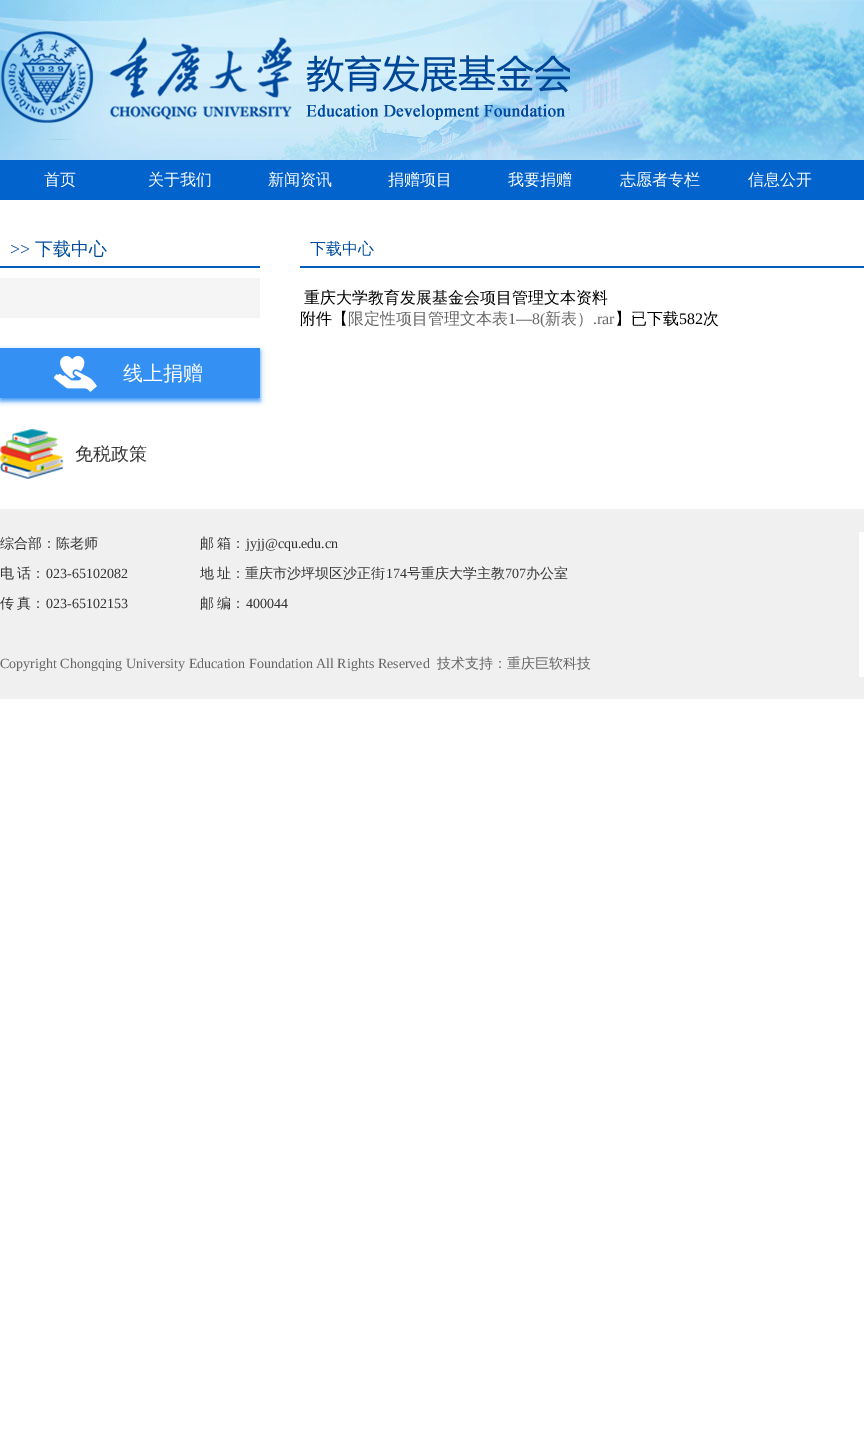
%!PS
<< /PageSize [864 1453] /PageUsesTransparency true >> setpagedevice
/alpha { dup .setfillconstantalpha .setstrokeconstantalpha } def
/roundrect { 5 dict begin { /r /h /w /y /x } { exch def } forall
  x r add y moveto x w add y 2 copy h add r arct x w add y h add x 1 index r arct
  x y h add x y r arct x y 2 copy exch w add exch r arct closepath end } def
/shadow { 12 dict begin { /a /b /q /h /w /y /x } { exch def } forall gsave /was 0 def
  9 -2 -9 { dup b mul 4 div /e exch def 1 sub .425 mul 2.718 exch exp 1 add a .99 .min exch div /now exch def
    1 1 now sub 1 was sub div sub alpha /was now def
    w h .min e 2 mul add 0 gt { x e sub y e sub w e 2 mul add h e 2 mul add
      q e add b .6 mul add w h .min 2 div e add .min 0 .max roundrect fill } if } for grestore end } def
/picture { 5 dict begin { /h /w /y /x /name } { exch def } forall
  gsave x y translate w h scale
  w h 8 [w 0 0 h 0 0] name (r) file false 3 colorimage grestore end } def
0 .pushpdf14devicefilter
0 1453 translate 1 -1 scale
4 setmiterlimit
1 setgray
0 0 864 1453 rectfill
(img1.rgb) 0 0 864 160 picture
(img2.rgb) 0 20 570 120 picture
0.008 0.388 0.804 setrgbcolor
0 160 864 40 rectfill
/WenQuanYiZenHei-Medium [16 0 0 -16 0 0] selectfont
1 setgray
44 185 moveto (首页) show
148 185 moveto (关于我们) show
268 185 moveto (新闻资讯) show
388 185 moveto (捐赠项目) show
508 185 moveto (我要捐赠) show
620 185 moveto (志愿者专栏) show
748 185 moveto (信息公开) show
0.004 0.357 0.741 setrgbcolor
0 266 260 2 rectfill
/LiberationSerif-Regular [18 0 0 -18 0 0] selectfont
0 0.294 0.616 setrgbcolor
10 255 moveto (>>) show
/WenQuanYiZenHei-Medium [18 0 0 -18 0 0] selectfont
35 255 moveto (下载中心) show
0.961 setgray
0 278 260 40 rectfill
0.204 0.565 0.953 setrgbcolor
0 351 260 50 0 2.5 1 shadow
0 348 260 50 rectfill
(img3.rgb) 54 356 43 36 picture
/WenQuanYiZenHei-Medium [20 0 0 -20 0 0] selectfont
1 setgray
123 380 moveto (线上捐赠) show
(img4.rgb) 0 429 63 50 picture
/WenQuanYiZenHei-Medium [18 0 0 -18 0 0] selectfont
0.2 setgray
75 460 moveto (免税政策) show
0.004 0.357 0.741 setrgbcolor
300 266 564 2 rectfill
/WenQuanYiZenHei-Medium [16 0 0 -16 0 0] selectfont
0 0.294 0.616 setrgbcolor
310 254 moveto (下载中心) show
0 setgray
304 303 moveto (重庆大学教育发展基金会项目管理文本资料) show
300 324 moveto (附件【) show
0.4 setgray
348 324 moveto (限定性项目管理文本表) show
/LiberationSerif-Regular [16 0 0 -16 0 0] selectfont
508 324 moveto (1—8\() show
/WenQuanYiZenHei-Medium [16 0 0 -16 0 0] selectfont
545 324 moveto (新表）) show
/LiberationSerif-Regular [16 0 0 -16 0 0] selectfont
593 324 moveto (.rar) show
/WenQuanYiZenHei-Medium [16 0 0 -16 0 0] selectfont
0 setgray
615 324 moveto (】已下载) show
/LiberationSerif-Regular [16 0 0 -16 0 0] selectfont
679 324 moveto (582) show
/WenQuanYiZenHei-Medium [16 0 0 -16 0 0] selectfont
703 324 moveto (次) show
0.941 setgray
0 509 864 190 rectfill
/WenQuanYiZenHei-Medium [14 0 0 -14 0 0] selectfont
0.2 setgray
0 548 moveto (综合部：陈老师) show
0 578 moveto -1 0 32 (电 话：) widthshow
/LiberationSerif-Regular [14 0 0 -14 0 0] selectfont
46 578 moveto (023-65102082) show
/WenQuanYiZenHei-Medium [14 0 0 -14 0 0] selectfont
0 608 moveto -1 0 32 (传 真：) widthshow
/LiberationSerif-Regular [14 0 0 -14 0 0] selectfont
46 608 moveto (023-65102153) show
/WenQuanYiZenHei-Medium [14 0 0 -14 0 0] selectfont
200 548 moveto -1 0 32 (邮 箱：) widthshow
/LiberationSerif-Regular [14 0 0 -14 0 0] selectfont
246 548 moveto (jyjj@cqu.edu.cn) show
/WenQuanYiZenHei-Medium [14 0 0 -14 0 0] selectfont
200 578 moveto -1 0 32 (地 址：重庆市沙坪坝区沙正街) widthshow
/LiberationSerif-Regular [14 0 0 -14 0 0] selectfont
386 578 moveto (174) show
/WenQuanYiZenHei-Medium [14 0 0 -14 0 0] selectfont
407 578 moveto (号重庆大学主教) show
/LiberationSerif-Regular [14 0 0 -14 0 0] selectfont
505 578 moveto (707) show
/WenQuanYiZenHei-Medium [14 0 0 -14 0 0] selectfont
526 578 moveto (办公室) show
200 608 moveto -1 0 32 (邮 编：) widthshow
/LiberationSerif-Regular [14 0 0 -14 0 0] selectfont
246 608 moveto (400044) show
0.4 setgray
0 668 moveto (Copyright Chongqing University Education Foundation All Rights Reserved) show
/WenQuanYiZenHei-Medium [14 0 0 -14 0 0] selectfont
437 668 moveto (技术支持：重庆巨软科技) show
1 setgray
859 532 5 145 rectfill
.poppdf14devicefilter showpage
